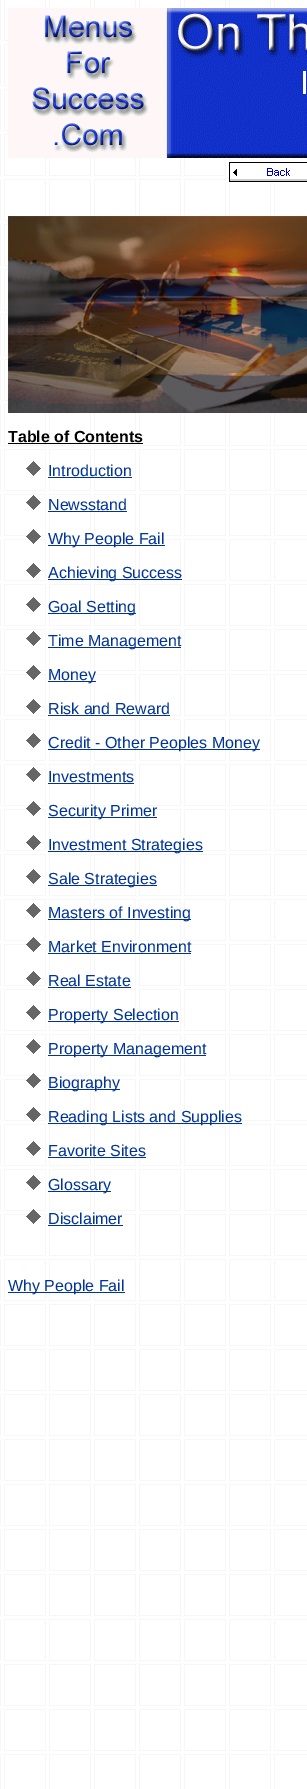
%!PS
<< /PageSize [307 1789] >> setpagedevice
/picture { 5 dict begin { /h /w /y /x /name } { exch def } forall
  gsave x y translate w h scale
  w h 8 [w 0 0 h 0 0] name (r) file false 3 colorimage grestore end } def
0 1789 translate 1 -1 scale
4 setmiterlimit
1 setgray
0 0 307 1789 rectfill
(img1.rgb) 0 0 307 1789 picture
(img2.rgb) 8 8 299 150 picture
(img3.rgb) 229 162 78 20 picture
(img4.rgb) 8 216 299 197 picture
/LiberationSans-Bold [16 0 0 -16 0 0] selectfont
0 setgray
8 442 moveto (Table of Contents) show
8 443 135 1 rectfill
(img5.rgb) 26 461 15 15 picture
/LiberationSans-Regular [16 0 0 -16 0 0] selectfont
0 0.2 0.6 setrgbcolor
48 476 moveto (Introduction) show
48 477 84 1 rectfill
(img5.rgb) 26 495 15 15 picture
48 510 moveto (Newsstand) show
48 511 79 1 rectfill
(img6.rgb) 26 529 15 15 picture
48 545 117 1 rectfill
48 544 moveto (Why People Fail) show
(img5.rgb) 26 563 15 15 picture
48 579 134 1 rectfill
48 578 moveto (Achieving Success) show
(img5.rgb) 26 597 15 15 picture
48 613 88 1 rectfill
48 612 moveto (Goal Setting) show
(img5.rgb) 26 631 15 15 picture
48 647 133 1 rectfill
48 646 moveto (Time Management) show
(img7.rgb) 26 665 15 15 picture
48 681 48 1 rectfill
48 680 moveto (Money) show
(img5.rgb) 26 699 15 15 picture
48 714 moveto (Risk and Reward) show
48 715 122 1 rectfill
(img5.rgb) 26 733 15 15 picture
48 749 212 1 rectfill
48 748 moveto (Credit - Other Peoples Money) show
(img5.rgb) 26 767 15 15 picture
48 782 moveto (Investments) show
48 783 86 1 rectfill
(img8.rgb) 26 801 15 15 picture
48 817 109 1 rectfill
48 816 moveto (Security Primer) show
(img5.rgb) 26 835 15 15 picture
48 851 155 1 rectfill
48 850 moveto (Investment Strategies) show
(img5.rgb) 26 869 15 15 picture
48 885 109 1 rectfill
48 884 moveto (Sale Strategies) show
(img5.rgb) 26 903 15 15 picture
48 919 143 1 rectfill
48 918 moveto (Masters of Investing) show
(img9.rgb) 26 937 15 15 picture
48 952 moveto (Market Environment) show
48 953 143 1 rectfill
(img10.rgb) 26 971 15 15 picture
48 986 moveto (Real Estate) show
48 987 83 1 rectfill
(img5.rgb) 26 1005 15 15 picture
48 1021 131 1 rectfill
48 1020 moveto (Property Selection) show
(img5.rgb) 26 1039 15 15 picture
48 1055 158 1 rectfill
48 1054 moveto (Property Management) show
(img11.rgb) 26 1073 15 15 picture
48 1089 72 1 rectfill
48 1088 moveto (Biography) show
(img12.rgb) 26 1107 15 15 picture
48 1123 194 1 rectfill
48 1122 moveto (Reading Lists and Supplies) show
(img5.rgb) 26 1141 15 15 picture
48 1156 moveto (Favorite Sites) show
48 1157 98 1 rectfill
(img5.rgb) 26 1175 15 15 picture
48 1191 63 1 rectfill
48 1190 moveto (Glossary) show
(img13.rgb) 26 1209 15 15 picture
48 1224 moveto (Disclaimer) show
48 1225 75 1 rectfill
8 1292 117 1 rectfill
8 1291 moveto (Why People Fail) show
showpage
